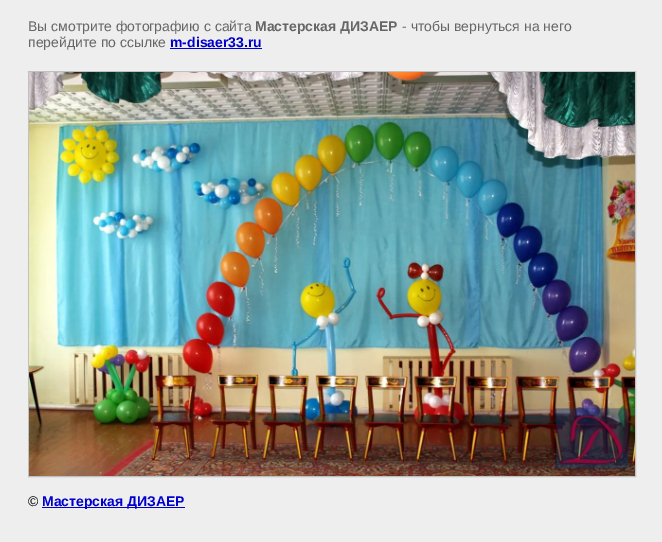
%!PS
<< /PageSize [662 542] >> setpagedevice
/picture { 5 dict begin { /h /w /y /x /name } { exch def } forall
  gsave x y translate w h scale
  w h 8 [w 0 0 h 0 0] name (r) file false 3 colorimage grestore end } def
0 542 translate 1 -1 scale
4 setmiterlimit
0.933 setgray
0 0 662 542 rectfill
/LiberationSans-Regular [14 0 0 -14 0 0] selectfont
0.4 setgray
28 31 moveto (Вы смотрите фотографию с сайта) show
/LiberationSans-Bold [14 0 0 -14 0 0] selectfont
255 31 moveto (Мастерская ДИЗАЕР) show
/LiberationSans-Regular [14 0 0 -14 0 0] selectfont
402 31 moveto (- чтобы вернуться на него) show
28 47 moveto (перейдите по ссылке) show
/LiberationSans-Bold [14 0 0 -14 0 0] selectfont
0 0 0.8 setrgbcolor
170 47 moveto (m-disaer33.ru) show
170 48 92 1 rectfill
0.753 setgray
28.5 71.5 607 405 rectstroke
(img1.rgb) 29 72 606 404 picture
/LiberationSans-Regular [14 0 0 -14 0 0] selectfont
0 setgray
28 506 moveto (©) show
0 0 0.8 setrgbcolor
42 507 143 1 rectfill
/LiberationSans-Bold [14 0 0 -14 0 0] selectfont
42 506 moveto (Мастерская ДИЗАЕР) show
showpage
